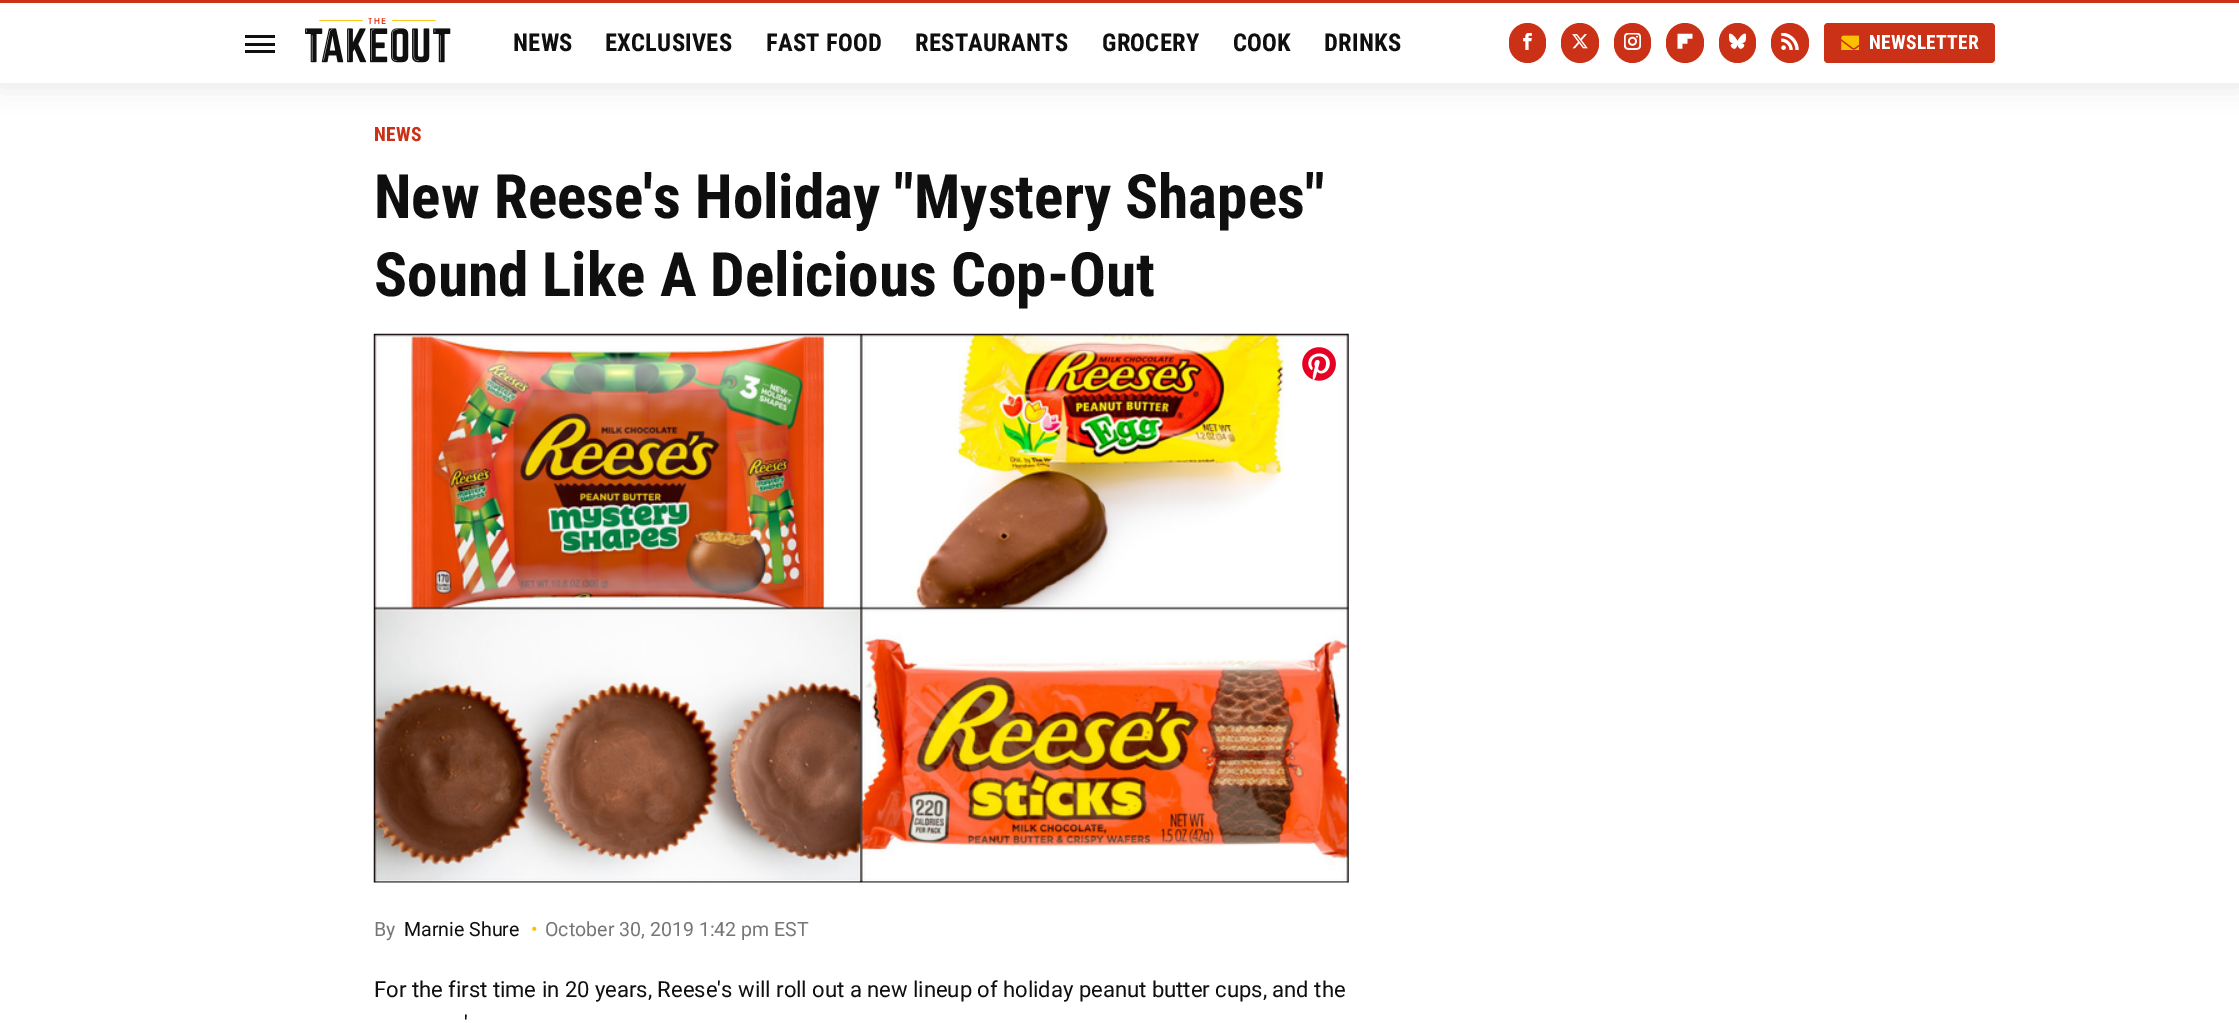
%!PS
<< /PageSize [2239 1023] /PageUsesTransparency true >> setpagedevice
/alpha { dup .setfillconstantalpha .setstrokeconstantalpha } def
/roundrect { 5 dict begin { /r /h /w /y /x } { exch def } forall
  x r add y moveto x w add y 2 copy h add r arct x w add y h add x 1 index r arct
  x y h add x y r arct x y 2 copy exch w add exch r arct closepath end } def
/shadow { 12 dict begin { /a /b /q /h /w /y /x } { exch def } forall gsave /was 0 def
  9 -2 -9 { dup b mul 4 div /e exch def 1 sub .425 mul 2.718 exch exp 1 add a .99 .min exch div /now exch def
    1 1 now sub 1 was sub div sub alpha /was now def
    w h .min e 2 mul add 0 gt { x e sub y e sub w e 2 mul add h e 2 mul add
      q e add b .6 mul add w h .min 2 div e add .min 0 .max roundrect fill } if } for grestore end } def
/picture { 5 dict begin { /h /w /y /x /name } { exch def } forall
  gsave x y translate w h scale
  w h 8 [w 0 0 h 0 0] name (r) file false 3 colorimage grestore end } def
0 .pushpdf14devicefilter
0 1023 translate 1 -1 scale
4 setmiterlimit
1 setgray
0 0 2239 1023 rectfill
0 setgray
0 4 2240 82 0 12.5 0.1 shadow
1 setgray
0 3 2239 80 rectfill
0.792 0.192 0.086 setrgbcolor
0 0 2239 3 rectfill
0.059 setgray
245 35 30 3 rectfill
245 43 30 3 rectfill
245 50 30 3 rectfill
(img1.rgb) 305 18 146 45 picture
/RobotoCondensed-Bold [25 0 0 -25 0 0] selectfont
513 51 moveto 0.25 0 (NEWS) ashow
605 51 moveto 0.25 0 (EXCLUSIVES) ashow
766 51 moveto 0.25 0 (FAST FOOD) ashow
915 51 moveto 0.25 0 (RESTAURANTS) ashow
1102 51 moveto 0.25 0 (GROCERY) ashow
1233 51 moveto 0.25 0 (COOK) ashow
1324 51 moveto 0.25 0 (DRINKS) ashow
0.792 0.192 0.086 setrgbcolor
1509 23 37 40 18.5 roundrect fill
(img2.rgb) 1523 33 9 17 picture
1561 23 38 40 19 roundrect fill
(img3.rgb) 1572 34 16 15 picture
1614 23 37 40 18.5 roundrect fill
(img4.rgb) 1624 33 17 17 picture
1666 23 38 40 19 roundrect fill
(img5.rgb) 1677 33 16 16 picture
1719 23 37 40 18.5 roundrect fill
(img6.rgb) 1729 33 17 16 picture
1771 23 38 40 19 roundrect fill
(img7.rgb) 1781 33 18 17 picture
1824 23 171 40 4 roundrect fill
(img8.rgb) 1841 35 18 15 picture
/RobotoCondensed-Bold [20 0 0 -20 0 0] selectfont
1 setgray
1869 49 moveto 0.25 0 (NEWSLETTER) ashow
0.792 0.192 0.086 setrgbcolor
374 141 moveto 0.25 0 (NEWS) ashow
/RobotoCondensed-Bold [62.5 0 0 -62.5 0 0] selectfont
0.059 setgray
374 218 moveto (New Reese's Holiday "Mystery Shapes") show
374 296 moveto (Sound Like A Delicious Cop-Out) show
0.937 setgray
374 334 975 549 rectfill
(img9.rgb) 373 333 976 550 picture
(img10.rgb) 1302 347 34 34 picture
/Roboto-Regular [20 0 0 -20 0 0] selectfont
0.463 setgray
374 936 moveto (By) show
0.059 setgray
404 936 moveto (Marnie Shure) show
0.984 0.753 0 setrgbcolor
531 936 moveto (•) show
0.463 setgray
545 936 moveto (October 30, 2019 1:42 pm EST) show
/Roboto-Regular [22.5 0 0 -22.5 0 0] selectfont
0.059 setgray
374 997 moveto (For the first time in 20 years, Reese's will roll out a new lineup of holiday peanut butter cups, and the) show
464 1031 moveto (') show
.poppdf14devicefilter showpage
